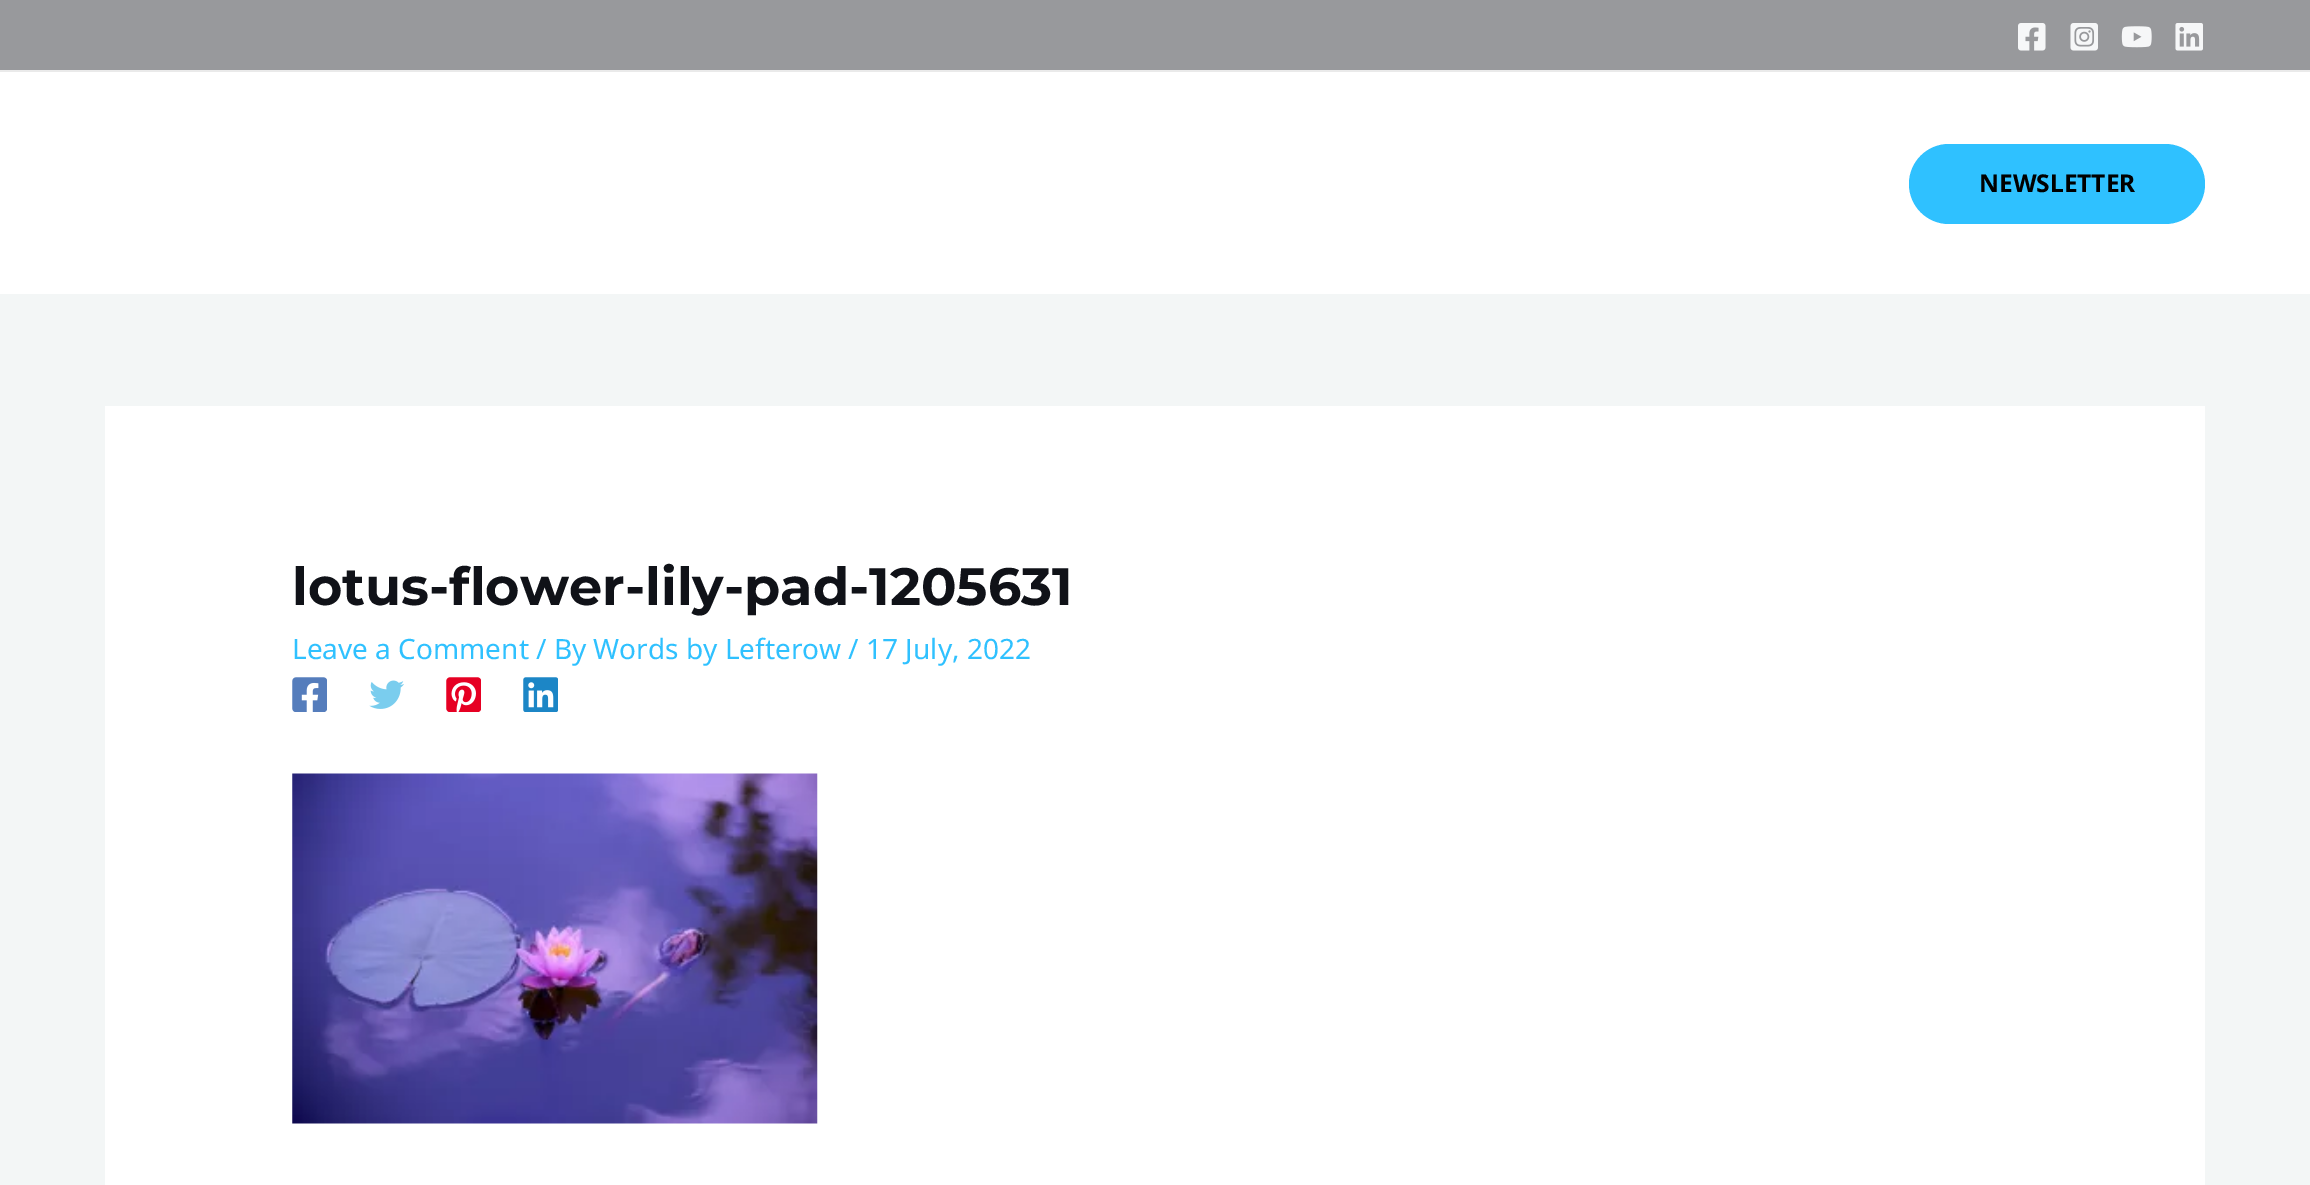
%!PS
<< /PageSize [2310 1185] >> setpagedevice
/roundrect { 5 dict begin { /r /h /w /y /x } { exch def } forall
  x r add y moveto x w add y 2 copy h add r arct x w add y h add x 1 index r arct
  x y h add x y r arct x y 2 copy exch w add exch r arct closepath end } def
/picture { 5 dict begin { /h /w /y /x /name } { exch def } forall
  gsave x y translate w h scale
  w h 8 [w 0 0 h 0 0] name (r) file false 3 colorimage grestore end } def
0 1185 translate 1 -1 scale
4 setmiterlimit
0.953 0.965 0.965 setrgbcolor
0 0 2310 1185 rectfill
0.596 0.6 0.612 setrgbcolor
0 0 2310 70 rectfill
0.918 setgray
0 70 2310 2 rectfill
(img1.rgb) 2018 23 28 28 picture
(img2.rgb) 2070 23 28 28 picture
(img3.rgb) 2121 26 31 22 picture
(img4.rgb) 2175 23 28 28 picture
1 setgray
0 72 2310 222 rectfill
0.184 0.757 1 setrgbcolor
1909 144 296 80 40 roundrect fill
/NotoSans-Bold [24.5 0 0 -24.5 0 0] selectfont
0 setgray
1979 192 moveto (NEWSLETTER) show
1 setgray
105 406 2100 779 rectfill
/Montserrat-Thin [52.5 0 0 -52.5 0 0] selectfont
0.063 0.071 0.094 setrgbcolor
292 605 moveto (lotus-flower-lily-pad-1205631) show
/NotoSans-Regular [28 0 0 -28 0 0] selectfont
0.184 0.757 1 setrgbcolor
292 659 moveto (Leave a Comment / By Words by Lefterow / 17 July, 2022) show
(img5.rgb) 292 677 35 35 picture
(img6.rgb) 369 680 35 29 picture
(img7.rgb) 446 677 35 35 picture
(img8.rgb) 523 677 35 35 picture
(img9.rgb) 292 773 526 351 picture
showpage
